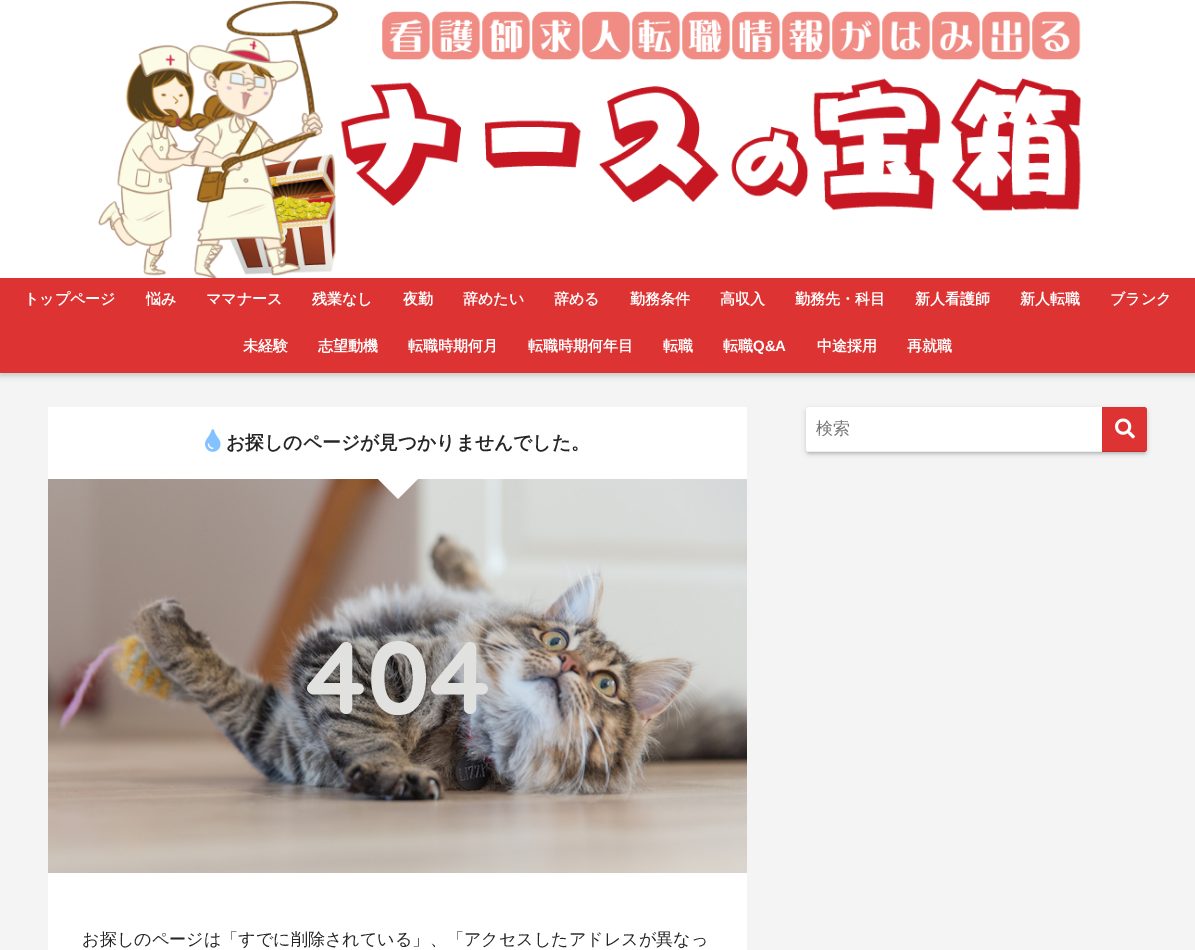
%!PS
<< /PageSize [1195 950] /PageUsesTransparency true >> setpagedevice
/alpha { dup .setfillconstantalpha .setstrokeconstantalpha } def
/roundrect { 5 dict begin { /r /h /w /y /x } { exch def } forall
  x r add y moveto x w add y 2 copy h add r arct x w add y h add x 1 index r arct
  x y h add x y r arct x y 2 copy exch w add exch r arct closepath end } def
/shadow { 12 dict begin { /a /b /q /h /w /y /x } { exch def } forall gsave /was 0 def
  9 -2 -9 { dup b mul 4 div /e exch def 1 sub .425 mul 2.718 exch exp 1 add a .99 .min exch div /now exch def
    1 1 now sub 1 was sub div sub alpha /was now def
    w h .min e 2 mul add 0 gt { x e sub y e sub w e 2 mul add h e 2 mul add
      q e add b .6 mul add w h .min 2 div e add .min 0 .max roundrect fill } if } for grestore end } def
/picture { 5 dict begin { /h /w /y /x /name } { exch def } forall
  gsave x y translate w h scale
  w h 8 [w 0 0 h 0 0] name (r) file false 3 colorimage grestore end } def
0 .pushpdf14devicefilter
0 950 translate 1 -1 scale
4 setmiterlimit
0.957 setgray
0 0 1195 950 rectfill
0 setgray
0 3 1195 373 0 3 0.18 shadow
0.867 0.2 0.2 setrgbcolor
0 278 1195 95 rectfill
1 setgray
0 0 1195 278 rectfill
(img1.rgb) 98 0 983 278 picture
/WenQuanYiZenHei-Bold [15 0 0 -15 0 0] selectfont
24 304 moveto (トップページ) show
146 304 moveto (悩み) show
206 304 moveto (ママナース) show
312 304 moveto (残業なし) show
403 304 moveto (夜勤) show
463 304 moveto (辞めたい) show
554 304 moveto (辞める) show
630 304 moveto (勤務条件) show
720 304 moveto (高収入) show
795 304 moveto (勤務先・科目) show
915 304 moveto (新人看護師) show
1020 304 moveto (新人転職) show
1110 304 moveto (ブランク) show
243 351 moveto (未経験) show
318 351 moveto (志望動機) show
408 351 moveto (転職時期何月) show
528 351 moveto (転職時期何年目) show
663 351 moveto (転職) show
723 351 moveto (転職) show
/LiberationSans-Bold [15 0 0 -15 0 0] selectfont
753 351 moveto (Q&A) show
/WenQuanYiZenHei-Bold [15 0 0 -15 0 0] selectfont
817 351 moveto (中途採用) show
907 351 moveto (再就職) show
0 setgray
808 412 337 41 1 1.5 0.15 shadow
806 409 341 45 3 2.5 0.15 shadow
1 setgray
806 407 341 45 3 roundrect fill
0.937 setgray
808 451 338 1 rectfill
/WenQuanYiZenHei-Medium [17 0 0 -17 0 0] selectfont
0.459 setgray
816 434 moveto (検索) show
0.867 0.2 0.2 setrgbcolor
newpath 1102 407 moveto 1144 407 lineto 1145.5 407 1147 408.5 1147 410 curveto 1147 449 lineto 1147 450.5 1145.5 452 1144 452 curveto 1102 452 lineto closepath fill
0.1 alpha
0 setgray
1102 451 44 1 rectfill
1 alpha
(img2.rgb) 1115 418 20 21 picture
1 setgray
48 407 699 72 rectfill
(img3.rgb) 205 429 16 23 picture
/WenQuanYiZenHei-Bold [18.8 0 0 -18.8 0 0] selectfont
0.145 setgray
226 449 moveto (お探しのページが見つかりませんでした。) show
(img4.rgb) 48 479 699 394 picture
1 setgray
newpath 378 479 moveto 418 479 lineto 398 499 lineto closepath fill
/Quicksand-Bold [103 0 0 -103 0 0] selectfont
0.882 0.882 0.878 setrgbcolor
306 714 moveto (404) show
1 setgray
48 873 699 77 rectfill
/WenQuanYiZenHei-Medium [17.1 0 0 -17.1 0 0] selectfont
0.145 setgray
82 945 moveto (お探しのページは「すでに削除されている」、「アクセスしたアドレスが異なっ) show
.poppdf14devicefilter showpage
